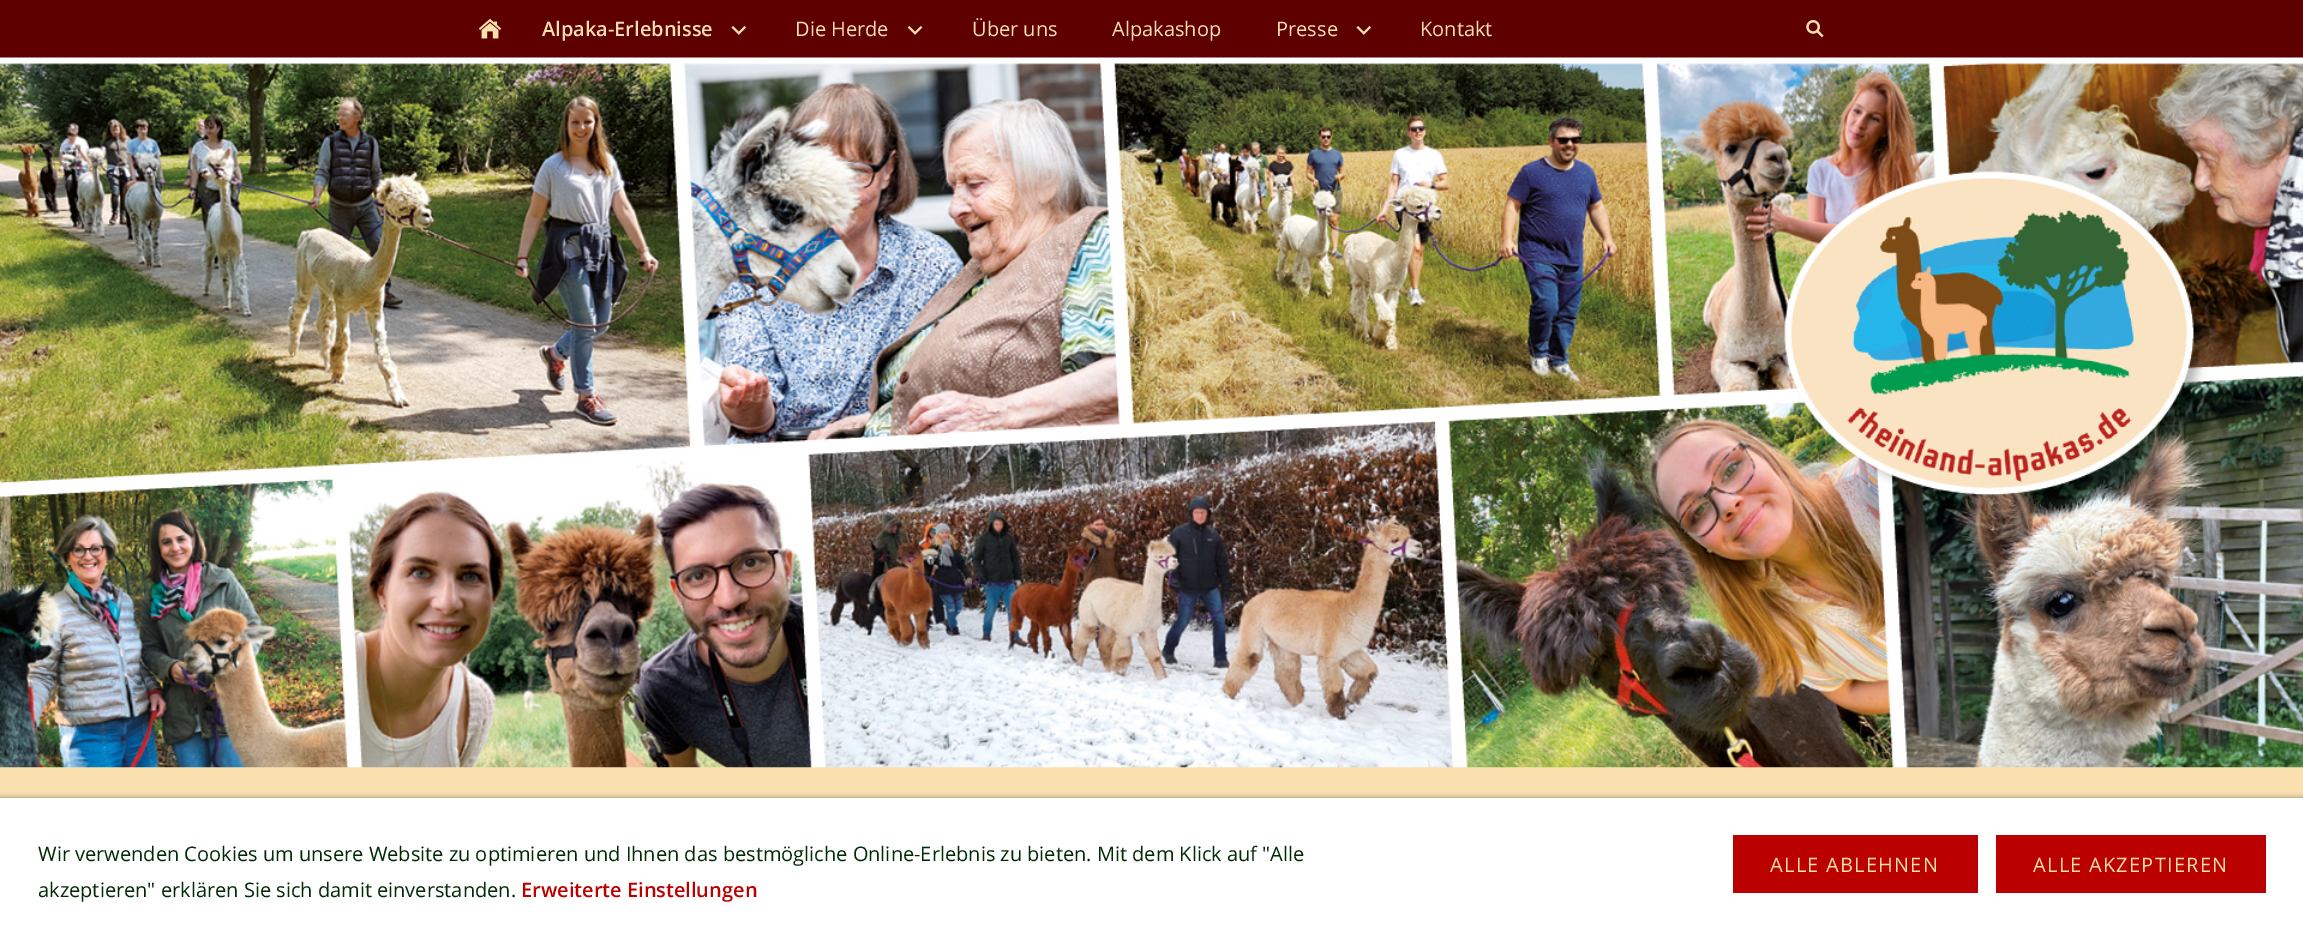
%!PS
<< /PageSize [2303 944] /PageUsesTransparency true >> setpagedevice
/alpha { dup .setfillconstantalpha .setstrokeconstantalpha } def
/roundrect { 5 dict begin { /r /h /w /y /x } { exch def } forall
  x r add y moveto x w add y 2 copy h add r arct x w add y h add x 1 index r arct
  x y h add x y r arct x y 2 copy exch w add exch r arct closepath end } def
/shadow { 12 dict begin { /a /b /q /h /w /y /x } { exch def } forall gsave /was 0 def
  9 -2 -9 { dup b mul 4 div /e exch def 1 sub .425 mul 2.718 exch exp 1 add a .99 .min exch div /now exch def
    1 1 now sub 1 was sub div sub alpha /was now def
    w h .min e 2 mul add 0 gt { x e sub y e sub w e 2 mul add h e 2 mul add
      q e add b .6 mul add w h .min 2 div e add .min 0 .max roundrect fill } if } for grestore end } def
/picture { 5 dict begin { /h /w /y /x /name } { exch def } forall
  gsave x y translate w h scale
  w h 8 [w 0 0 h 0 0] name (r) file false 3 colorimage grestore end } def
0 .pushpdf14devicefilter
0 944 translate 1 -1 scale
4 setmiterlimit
0.369 0 0 setrgbcolor
0 0 2303 944 rectfill
(img1.rgb) 479 18 22 21 picture
(img2.rgb) 731 26 15 9 picture
/OpenSans-SemiBold [20 0 0 -20 0 0] selectfont
0.98 0.878 0.686 setrgbcolor
542 36 moveto (Alpaka-Erlebnisse) show
(img3.rgb) 907 26 16 9 picture
/OpenSans-Regular [20 0 0 -20 0 0] selectfont
795 36 moveto (Die Herde) show
972 36 moveto (Über uns) show
1112 36 moveto (Alpakashop) show
(img2.rgb) 1356 26 15 9 picture
1276 36 moveto (Presse) show
1420 36 moveto (Kontakt) show
(img4.rgb) 1806 20 18 18 picture
0 767 2303 31 rectfill
(img5.rgb) 0 57 2303 711 picture
0 setgray
0 798 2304 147 0 3 0.4 shadow
1 setgray
0 798 2303 146 rectfill
0 0.161 0.02 setrgbcolor
38 861 moveto (Wir verwenden Cookies um unsere Website zu optimieren und Ihnen das bestmögliche Online-Erlebnis zu bieten. Mit dem Klick auf "Alle) show
38 897 moveto (akzeptieren" erklären Sie sich damit einverstanden.) show
/OpenSans-SemiBold [20 0 0 -20 0 0] selectfont
0.733 0 0 setrgbcolor
521 897 moveto (Erweiterte Einstellungen) show
1733 835 245 58 rectfill
/OpenSans-Regular [20 0 0 -20 0 0] selectfont
0.98 0.878 0.686 setrgbcolor
1770 872 moveto 1.25 0 (ALLE ABLEHNEN) ashow
0.733 0 0 setrgbcolor
1996 835 270 58 rectfill
0.98 0.878 0.686 setrgbcolor
2033 872 moveto 1.25 0 (ALLE AKZEPTIEREN) ashow
.poppdf14devicefilter showpage
